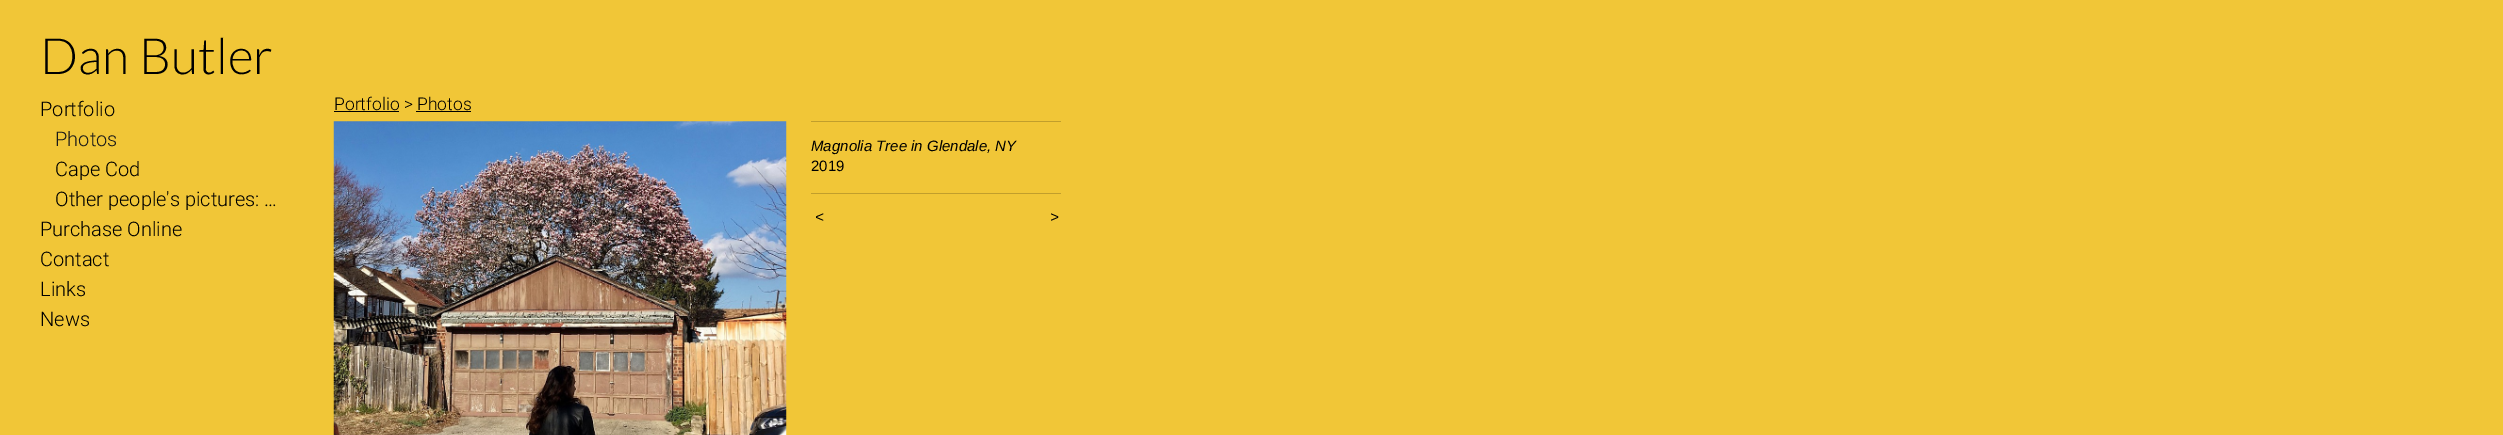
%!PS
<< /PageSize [2503 435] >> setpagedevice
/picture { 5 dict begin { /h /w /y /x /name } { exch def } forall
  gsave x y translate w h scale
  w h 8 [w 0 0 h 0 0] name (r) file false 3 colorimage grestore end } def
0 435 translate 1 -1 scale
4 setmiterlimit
0.945 0.776 0.216 setrgbcolor
0 0 2503 435 rectfill
/Lato-Light [50 0 0 -50 0 0] selectfont
0 setgray
40 74 moveto (Dan Butler) show
/Roboto-Light [20 0 0 -20 0 0] selectfont
40 116 moveto (Portfolio) show
0.102 setgray
55 146 moveto (Photos) show
0 setgray
55 176 moveto (Cape Cod) show
55 206 moveto (Other people's pictures: …) show
40 236 moveto (Purchase Online) show
40 266 moveto (Contact) show
40 296 moveto (Links) show
40 326 moveto (News) show
/Roboto-Light [17.5 0 0 -17.5 0 0] selectfont
334 110 moveto (Portfolio > Photos) show
334 111 65 1 rectfill
416 111 55 1 rectfill
(img1.rgb) 333 121 454 314 picture
0.757 0.62 0.173 setrgbcolor
811 121 250 1 rectfill
/LiberationSans-Italic [15 0 0 -15 0 0] selectfont
0 setgray
811 151 moveto (Magnolia Tree in Glendale, NY) show
/LiberationSans-Regular [15 0 0 -15 0 0] selectfont
811 171 moveto (2019) show
0.757 0.62 0.173 setrgbcolor
811 193 250 1 rectfill
/LiberationSans-Italic [15 0 0 -15 0 0] selectfont
0 setgray
815 222 moveto 1 0 (<) ashow
1050 222 moveto 1 0 (>) ashow
showpage
